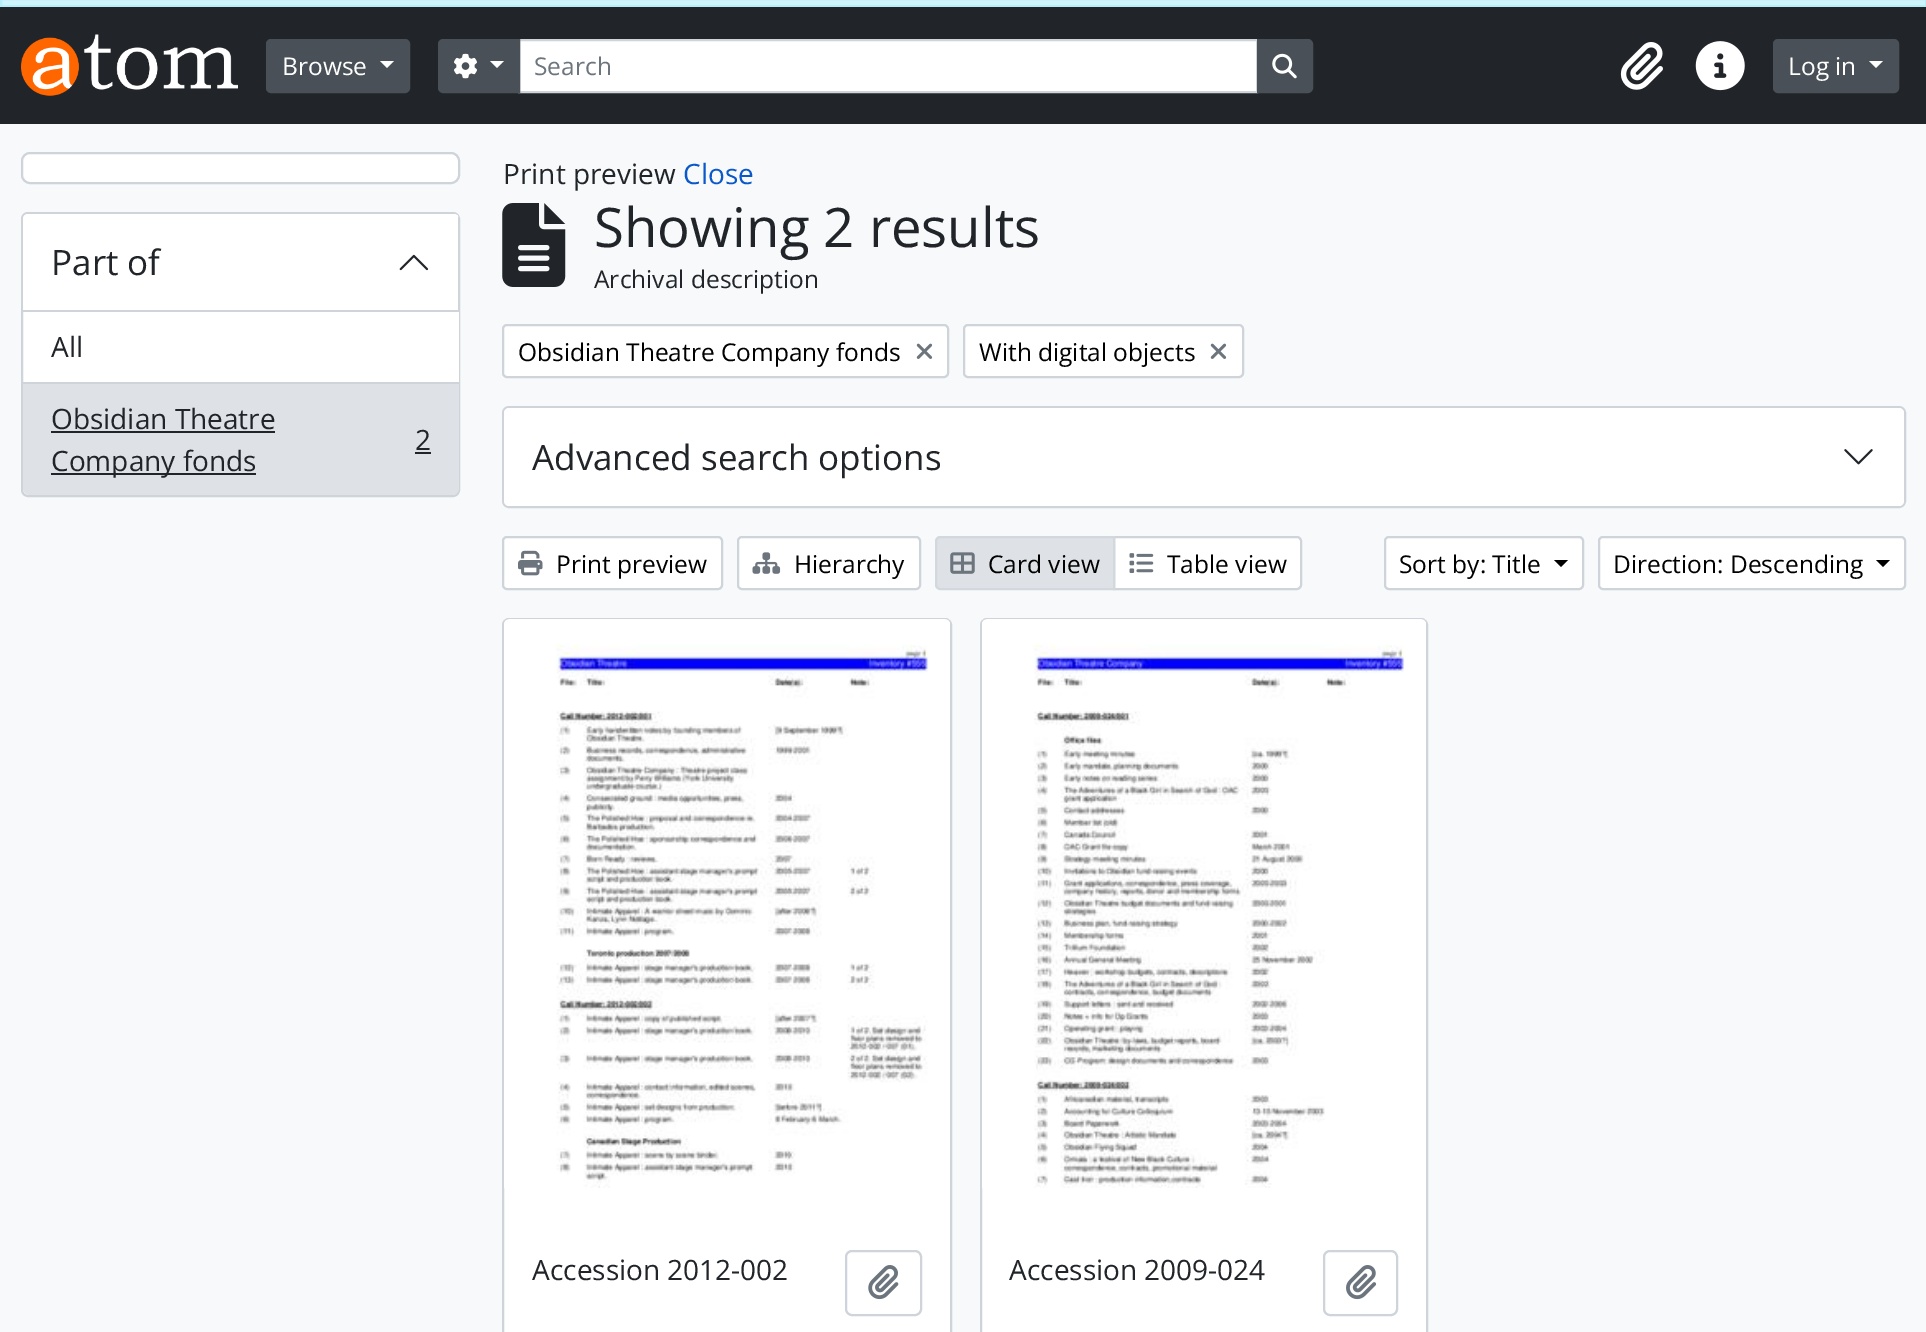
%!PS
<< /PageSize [1926 1332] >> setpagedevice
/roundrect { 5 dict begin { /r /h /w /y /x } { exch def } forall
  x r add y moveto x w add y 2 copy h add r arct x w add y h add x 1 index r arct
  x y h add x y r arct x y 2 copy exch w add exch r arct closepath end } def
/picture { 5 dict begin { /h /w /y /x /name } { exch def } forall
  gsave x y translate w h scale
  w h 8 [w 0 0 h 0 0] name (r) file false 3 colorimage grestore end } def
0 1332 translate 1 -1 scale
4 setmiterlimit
0.973 0.976 0.98 setrgbcolor
0 0 1926 1332 rectfill
0.812 0.957 0.988 setrgbcolor
newpath 1 -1 moveto 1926 -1 lineto 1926 6 lineto 1 6 lineto closepath gsave fill grestore
0.714 0.937 0.984 setrgbcolor
2 setlinewidth
stroke
0.129 0.145 0.161 setrgbcolor
0 7 1926 117 rectfill
(img1.rgb) 21 34 217 62 picture
0.286 0.314 0.341 setrgbcolor
267 40 142 52 4 roundrect gsave fill grestore
stroke
/OpenSans-Regular [24.5 0 0 -24.5 0 0] selectfont
1 setgray
282 75 moveto (Browse) show
newpath 380 61 moveto 394 61 lineto 387 68 lineto closepath fill
newpath 519 40 moveto 1257 40 lineto 1257 92 lineto 519 92 lineto closepath gsave fill grestore
0.808 0.831 0.855 setrgbcolor
stroke
0.286 0.314 0.341 setrgbcolor
newpath 443 40 moveto 519 40 lineto 519 92 lineto 443 92 lineto 441 92 439 90 439 88 curveto 439 44 lineto 439 42 441 40 443 40 curveto closepath gsave fill grestore
stroke
(img2.rgb) 454 53 23 26 picture
1 setgray
newpath 490 61 moveto 504 61 lineto 497 68 lineto closepath fill
0.424 0.459 0.49 setrgbcolor
534 75 moveto (Search) show
0.286 0.314 0.341 setrgbcolor
newpath 1258 40 moveto 1308 40 lineto 1310 40 1312 42 1312 44 curveto 1312 88 lineto 1312 90 1310 92 1308 92 curveto 1258 92 lineto closepath gsave fill grestore
stroke
(img3.rgb) 1272 53 25 26 picture
(img4.rgb) 1620 42 43 48 picture
(img5.rgb) 1695 41 50 50 picture
1774 40 124 52 4 roundrect gsave fill grestore
stroke
1 setgray
1788 75 moveto (Log in) show
newpath 1869 61 moveto 1883 61 lineto 1876 68 lineto closepath fill
22 153 437 30 8 roundrect gsave fill grestore
0.808 0.831 0.855 setrgbcolor
stroke
1 setgray
22 213 437 283 6 roundrect gsave fill grestore
0.808 0.831 0.855 setrgbcolor
stroke
1 setgray
newpath 28 214 moveto 454 214 lineto 457 214 459 216 459 219 curveto 459 312 lineto 23 312 lineto 23 219 lineto 23 216 25 214 28 214 curveto closepath fill
0.808 0.831 0.855 setrgbcolor
newpath 23 310 moveto 23 312 lineto 459 312 lineto 459 219 lineto 459 218 459 217 458 216 curveto 458 310 lineto closepath fill
/OpenSans-Regular [35 0 0 -35 0 0] selectfont
0.129 0.145 0.161 setrgbcolor
51 275 moveto (Part of) show
(img6.rgb) 399 254 30 17 picture
1 setgray
458 312 1 70 rectfill
/OpenSans-Regular [28 0 0 -28 0 0] selectfont
0.129 0.145 0.161 setrgbcolor
51 357 moveto (All) show
0.871 0.886 0.902 setrgbcolor
newpath 23 383 moveto 459 383 lineto 459 488 lineto 459 492 456 495 452 495 curveto 30 495 lineto 26 495 23 492 23 488 curveto closepath fill
0.808 0.831 0.855 setrgbcolor
23 382 436 2 rectfill
0.129 0.145 0.161 setrgbcolor
51 429 moveto (Obsidian Theatre) show
51 431 224 2 rectfill
415 450 moveto (2) show
415 452 16 2 rectfill
51 473 205 2 rectfill
51 471 moveto (Company fonds) show
503 184 moveto (Print preview) show
0.039 0.345 0.792 setrgbcolor
683 184 moveto (Close) show
(img7.rgb) 502 203 64 84 picture
/OpenSans-Regular [54.5 0 0 -54.5 0 0] selectfont
0.129 0.145 0.161 setrgbcolor
594 247 moveto (Showing 2 results) show
/OpenSans-Regular [24.5 0 0 -24.5 0 0] selectfont
594 288 moveto (Archival description) show
1 setgray
503 325 445 52 4 roundrect gsave fill grestore
0.808 0.831 0.855 setrgbcolor
stroke
0 setgray
518 361 moveto (Obsidian Theatre Company fonds) show
(img8.rgb) 916 343 17 16 picture
1 setgray
964 325 279 52 4 roundrect gsave fill grestore
0.808 0.831 0.855 setrgbcolor
stroke
0 setgray
979 361 moveto (With digital objects) show
(img8.rgb) 1210 343 17 16 picture
0.808 0.831 0.855 setrgbcolor
503 407 1402 100 6 roundrect stroke
1 setgray
504 408 1400 98 5 roundrect fill
/OpenSans-Regular [35 0 0 -35 0 0] selectfont
0.129 0.145 0.161 setrgbcolor
532 470 moveto (Advanced search options) show
(img9.rgb) 1844 449 29 16 picture
1 setgray
503 537 219 52 4 roundrect gsave fill grestore
0.808 0.831 0.855 setrgbcolor
stroke
(img10.rgb) 518 550 25 26 picture
/OpenSans-Regular [24.5 0 0 -24.5 0 0] selectfont
0 setgray
556 573 moveto (Print preview) show
1 setgray
738 537 182 52 4 roundrect gsave fill grestore
0.808 0.831 0.855 setrgbcolor
stroke
(img11.rgb) 752 552 29 22 picture
0 setgray
794 573 moveto (Hierarchy) show
1 setgray
newpath 1114 537 moveto 1297 537 lineto 1299 537 1301 539 1301 541 curveto 1301 585 lineto 1301 587 1299 589 1297 589 curveto 1114 589 lineto closepath gsave fill grestore
0.808 0.831 0.855 setrgbcolor
stroke
0.871 0.886 0.902 setrgbcolor
newpath 940 537 moveto 1114 537 lineto 1114 589 lineto 940 589 lineto 938 589 936 587 936 585 curveto 936 541 lineto 936 539 938 537 940 537 curveto closepath gsave fill grestore
0.827 0.847 0.871 setrgbcolor
stroke
(img12.rgb) 950 552 25 22 picture
0 setgray
988 573 moveto (Card view) show
(img13.rgb) 1129 553 25 20 picture
1167 573 moveto (Table view) show
1 setgray
1385 537 198 52 4 roundrect gsave fill grestore
0.808 0.831 0.855 setrgbcolor
stroke
0 setgray
1399 573 moveto (Sort by: Title) show
newpath 1554 560 moveto 1568 560 lineto 1561 567 lineto closepath fill
1 setgray
1599 537 306 52 4 roundrect gsave fill grestore
0.808 0.831 0.855 setrgbcolor
stroke
0 setgray
1613 573 moveto (Direction: Descending) show
newpath 1876 560 moveto 1890 560 lineto 1883 567 lineto closepath fill
1 setgray
503 619 448 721 6 roundrect gsave fill grestore
0.808 0.831 0.855 setrgbcolor
stroke
(img14.rgb) 504 619 446 569 picture
/OpenSans-Regular [28 0 0 -28 0 0] selectfont
0.129 0.145 0.161 setrgbcolor
532 1280 moveto (Accession 2012-002) show
0.808 0.831 0.855 setrgbcolor
846 1251 75 64 6 roundrect stroke
(img15.rgb) 868 1265 31 35 picture
1 setgray
981 619 446 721 6 roundrect gsave fill grestore
0.808 0.831 0.855 setrgbcolor
stroke
(img16.rgb) 982 619 444 569 picture
0.129 0.145 0.161 setrgbcolor
1009 1280 moveto (Accession 2009-024) show
0.808 0.831 0.855 setrgbcolor
1324 1251 73 64 6 roundrect stroke
(img17.rgb) 1346 1265 31 35 picture
showpage
